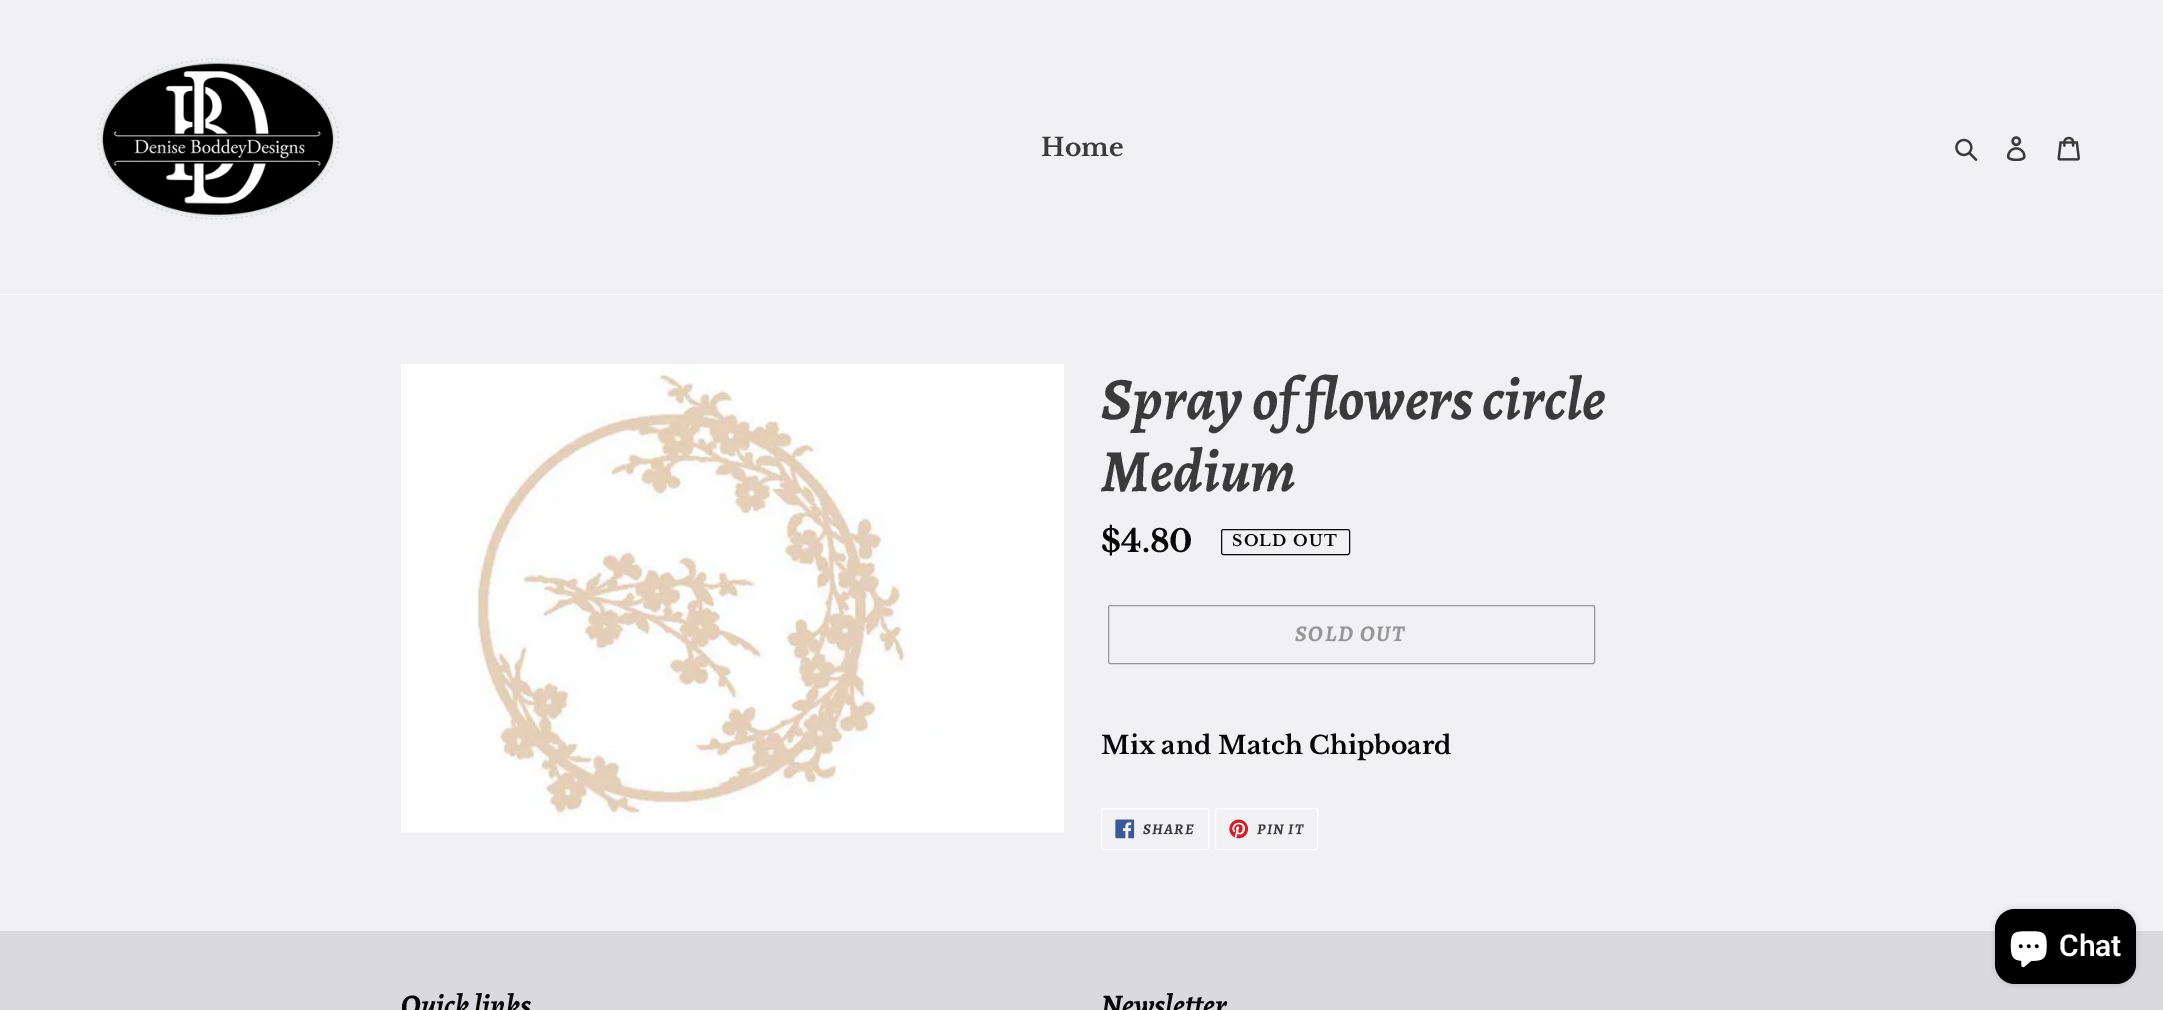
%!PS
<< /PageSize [2163 1010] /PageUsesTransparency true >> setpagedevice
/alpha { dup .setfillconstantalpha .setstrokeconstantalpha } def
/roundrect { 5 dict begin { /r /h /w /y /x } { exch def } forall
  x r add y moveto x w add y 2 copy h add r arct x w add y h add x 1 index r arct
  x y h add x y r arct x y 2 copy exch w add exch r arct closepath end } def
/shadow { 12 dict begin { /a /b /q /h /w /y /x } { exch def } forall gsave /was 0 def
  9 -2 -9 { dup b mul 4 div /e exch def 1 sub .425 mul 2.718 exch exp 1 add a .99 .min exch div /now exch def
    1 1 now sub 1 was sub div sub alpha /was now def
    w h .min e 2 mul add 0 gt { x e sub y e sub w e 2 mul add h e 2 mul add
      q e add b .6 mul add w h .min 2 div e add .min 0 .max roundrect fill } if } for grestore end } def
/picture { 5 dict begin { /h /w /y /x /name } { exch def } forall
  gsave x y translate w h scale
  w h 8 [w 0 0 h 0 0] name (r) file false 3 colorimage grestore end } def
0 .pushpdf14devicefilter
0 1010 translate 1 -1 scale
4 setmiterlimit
0.945 0.945 0.957 setrgbcolor
0 0 2163 1010 rectfill
1 setgray
0 294 2163 1 rectfill
(img1.rgb) 97 58 243 162 picture
/LibreBaskerville-Bold [25 0 0 -25 0 0] selectfont
0.227 setgray
1041 156 moveto (Home) show
(img2.rgb) 1955 138 23 23 picture
(img3.rgb) 2006 136 20 25 picture
(img4.rgb) 2057 136 23 25 picture
(img5.rgb) 401 364 663 469 picture
/Alegreya-BoldItalic [60 0 0 -60 0 0] selectfont
1101 419 moveto (Spray of flowers circle) show
1101 491 moveto (Medium) show
/LibreBaskerville-Bold [31 0 0 -31 0 0] selectfont
0.031 setgray
1101 552 moveto ($4.80) show
1221.5 529.5 128 25 2 roundrect stroke
/LibreBaskerville-Bold [15.5 0 0 -15.5 0 0] selectfont
1232 546 moveto 1.25 0 (SOLD OUT) ashow
0.588 0.588 0.592 setrgbcolor
1108.5 605.5 486 58 2 roundrect stroke
/Alegreya-BoldItalic [22.5 0 0 -22.5 0 0] selectfont
1295 641 moveto 1.75 0 (SOLD OUT) ashow
/LibreBaskerville-Bold [25 0 0 -25 0 0] selectfont
0.031 setgray
1101 754 moveto (Mix and Match Chipboard) show
1 setgray
1101.5 808.5 107 41 2 roundrect stroke
(img6.rgb) 1115 819 20 20 picture
/Alegreya-BoldItalic [15 0 0 -15 0 0] selectfont
0.227 setgray
1143 834 moveto 1.25 0 (SHARE) ashow
1 setgray
1215.5 808.5 102 41 2 roundrect stroke
(img7.rgb) 1229 819 20 20 picture
0.227 setgray
1257 834 moveto 1.25 0 (PIN IT) ashow
0.855 0.851 0.871 setrgbcolor
0 931 2163 79 rectfill
/Alegreya-BoldItalic [30 0 0 -30 0 0] selectfont
0.031 setgray
401 1015 moveto (Quick links) show
1101 1015 moveto (Newsletter) show
0 setgray
1995 909 141 75 20 3 0.15 shadow
1995 909 141 75 20 roundrect fill
(img8.rgb) 2010 931 37 37 picture
/Roboto-SemiBold [30 0 0 -30 0 0] selectfont
1 setgray
2059 956 moveto (Chat) show
.poppdf14devicefilter showpage
